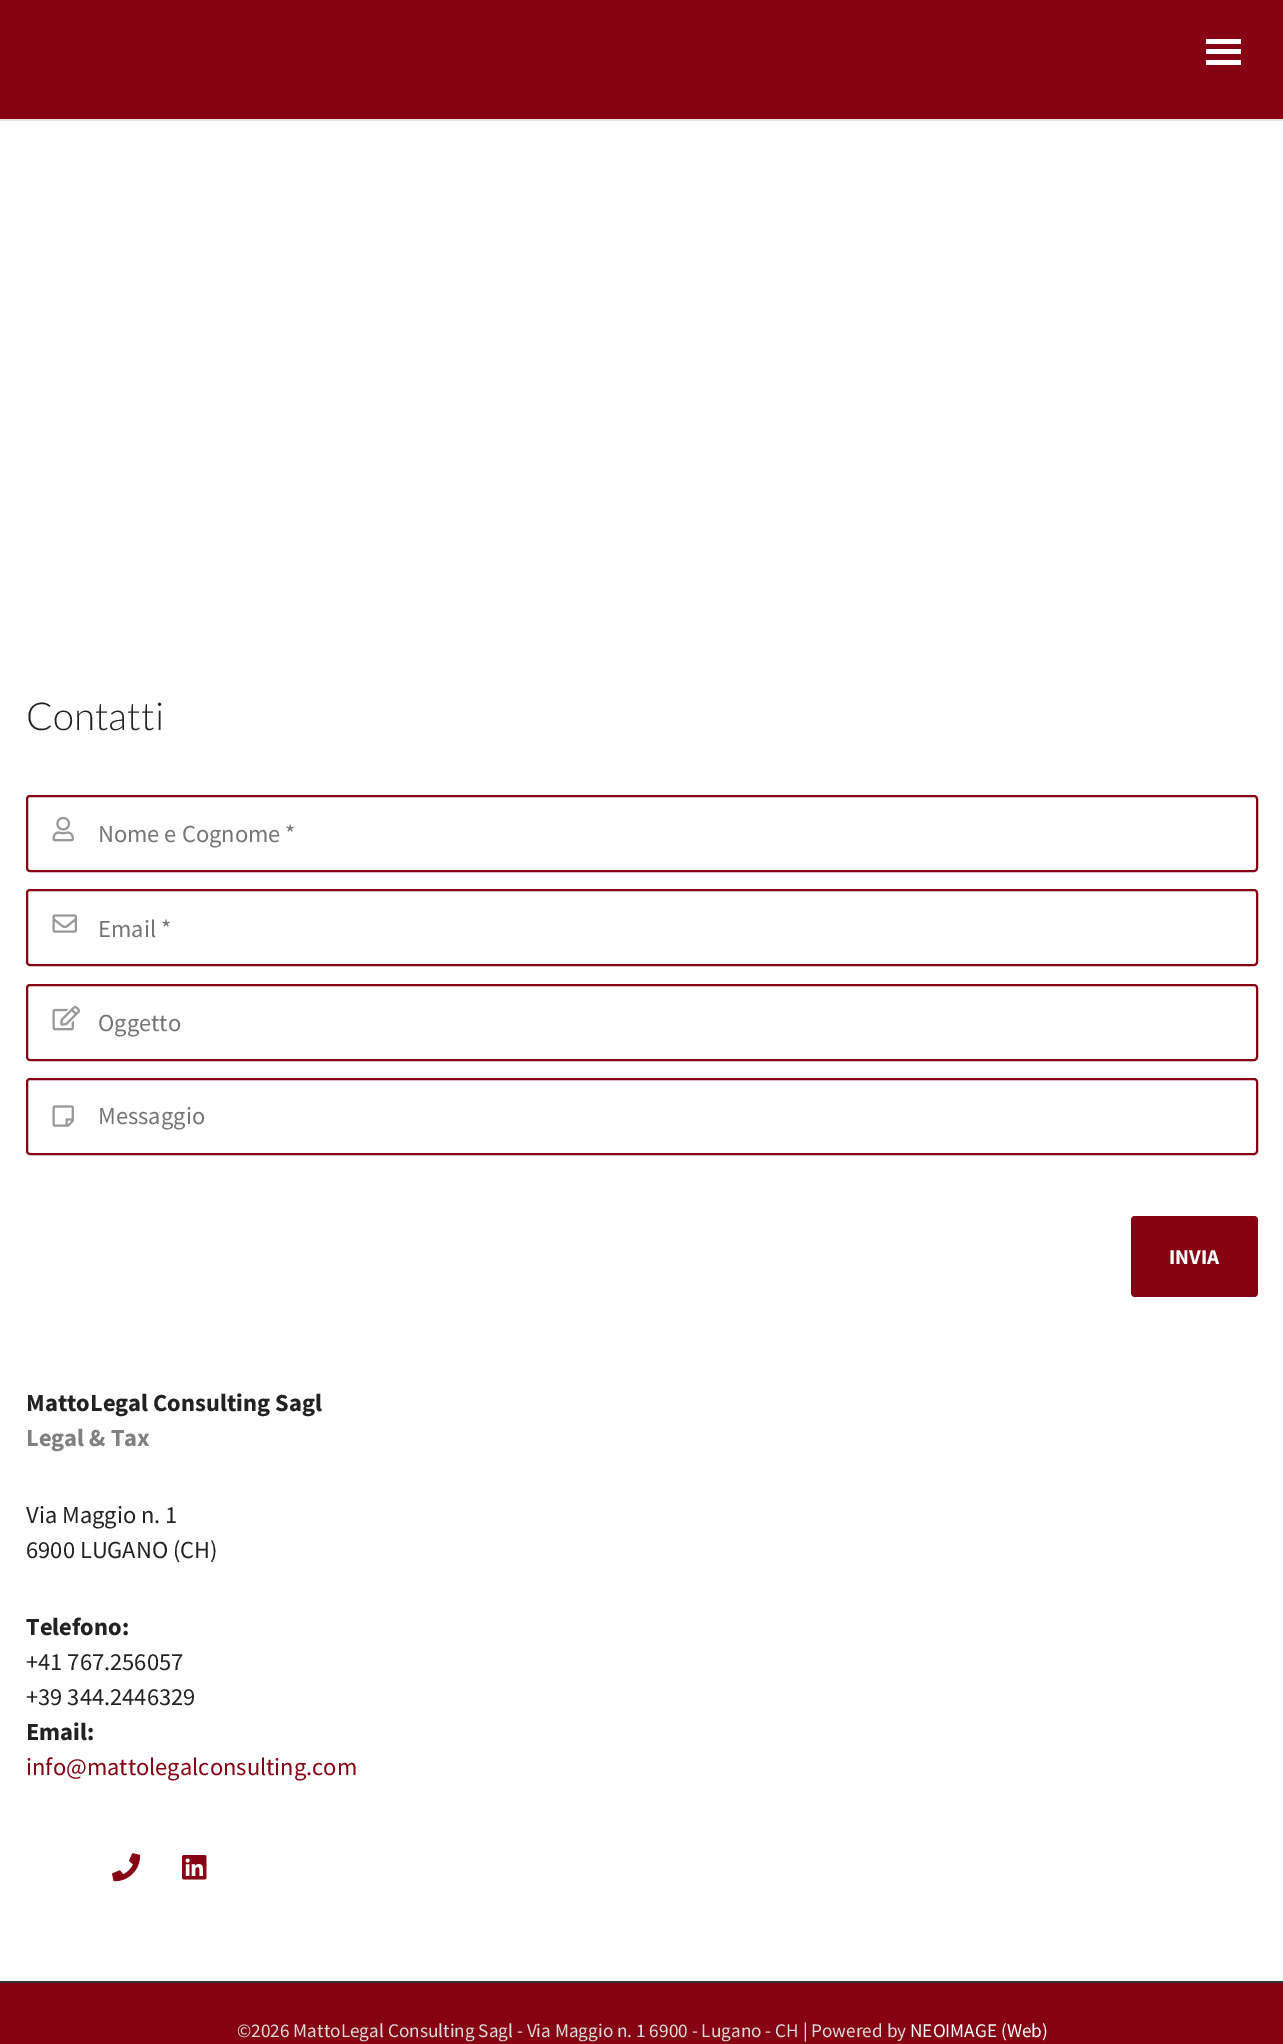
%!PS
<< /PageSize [1283 2044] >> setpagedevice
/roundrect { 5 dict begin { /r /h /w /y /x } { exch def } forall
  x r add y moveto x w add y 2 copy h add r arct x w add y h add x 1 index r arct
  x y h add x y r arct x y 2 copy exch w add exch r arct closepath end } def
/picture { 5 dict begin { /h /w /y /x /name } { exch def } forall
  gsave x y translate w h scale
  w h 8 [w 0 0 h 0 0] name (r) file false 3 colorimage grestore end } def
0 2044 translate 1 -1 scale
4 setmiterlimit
0.525 0.004 0.067 setrgbcolor
0 0 1283 2044 rectfill
0.894 setgray
0 119 1283 2 rectfill
1 setgray
1206 49 35 5 rectfill
1206 39 35 5 rectfill
1206 60 35 5 rectfill
0 121 1283 1860 rectfill
/Lato-Light [38.5 0 0 -38.5 0 0] selectfont
0.133 setgray
26 730 moveto (Contatti) show
0.525 0.004 0.067 setrgbcolor
2 setlinewidth
27 796 1230 75 3 roundrect stroke
(img1.rgb) 52 816 22 26 picture
/SourceSansPro-Regular [24.5 0 0 -24.5 0 0] selectfont
0.459 setgray
98 842 moveto (Nome e Cognome *) show
0.525 0.004 0.067 setrgbcolor
27 890 1230 75 3 roundrect stroke
(img2.rgb) 52 914 25 19 picture
0.459 setgray
98 937 moveto (Email *) show
0.525 0.004 0.067 setrgbcolor
27 985 1230 75 3 roundrect stroke
(img3.rgb) 52 1005 28 26 picture
0.459 setgray
98 1031 moveto (Oggetto) show
0.525 0.004 0.067 setrgbcolor
27 1079 1230 75 3 roundrect stroke
(img4.rgb) 52 1105 22 22 picture
0.459 setgray
98 1124 moveto (Messaggio) show
0.525 0.004 0.067 setrgbcolor
1131 1216 127 81 4 roundrect fill
/SourceSansPro-Bold [21 0 0 -21 0 0] selectfont
1 setgray
1169 1264 moveto (INVIA) show
/SourceSansPro-Bold [24.5 0 0 -24.5 0 0] selectfont
0.133 setgray
26 1411 moveto (MattoLegal Consulting Sagl) show
0.502 setgray
26 1446 moveto (Legal & Tax) show
/SourceSansPro-Regular [24.5 0 0 -24.5 0 0] selectfont
0.133 setgray
26 1523 moveto (Via Maggio n. 1) show
26 1558 moveto (6900 LUGANO \(CH\)) show
/SourceSansPro-Bold [24.5 0 0 -24.5 0 0] selectfont
26 1635 moveto (Telefono:) show
/SourceSansPro-Regular [24.5 0 0 -24.5 0 0] selectfont
26 1670 moveto (+41 767.256057) show
26 1705 moveto (+39 344.2446329) show
/SourceSansPro-Bold [24.5 0 0 -24.5 0 0] selectfont
26 1740 moveto (Email:) show
/SourceSansPro-Regular [24.5 0 0 -24.5 0 0] selectfont
0.525 0.004 0.067 setrgbcolor
26 1775 moveto (info@mattolegalconsulting.com) show
(img5.rgb) 112 1853 29 29 picture
(img6.rgb) 182 1855 25 25 picture
0.2 setgray
0 1981 1283 2 rectfill
/SourceSansPro-Regular [19.25 0 0 -19.25 0 0] selectfont
0.867 setgray
237 2037 moveto (©2026 MattoLegal Consulting Sagl - Via Maggio n. 1 6900 - Lugano - CH | Powered by) show
1 setgray
910 2037 moveto (NEOIMAGE \(Web\)) show
showpage
